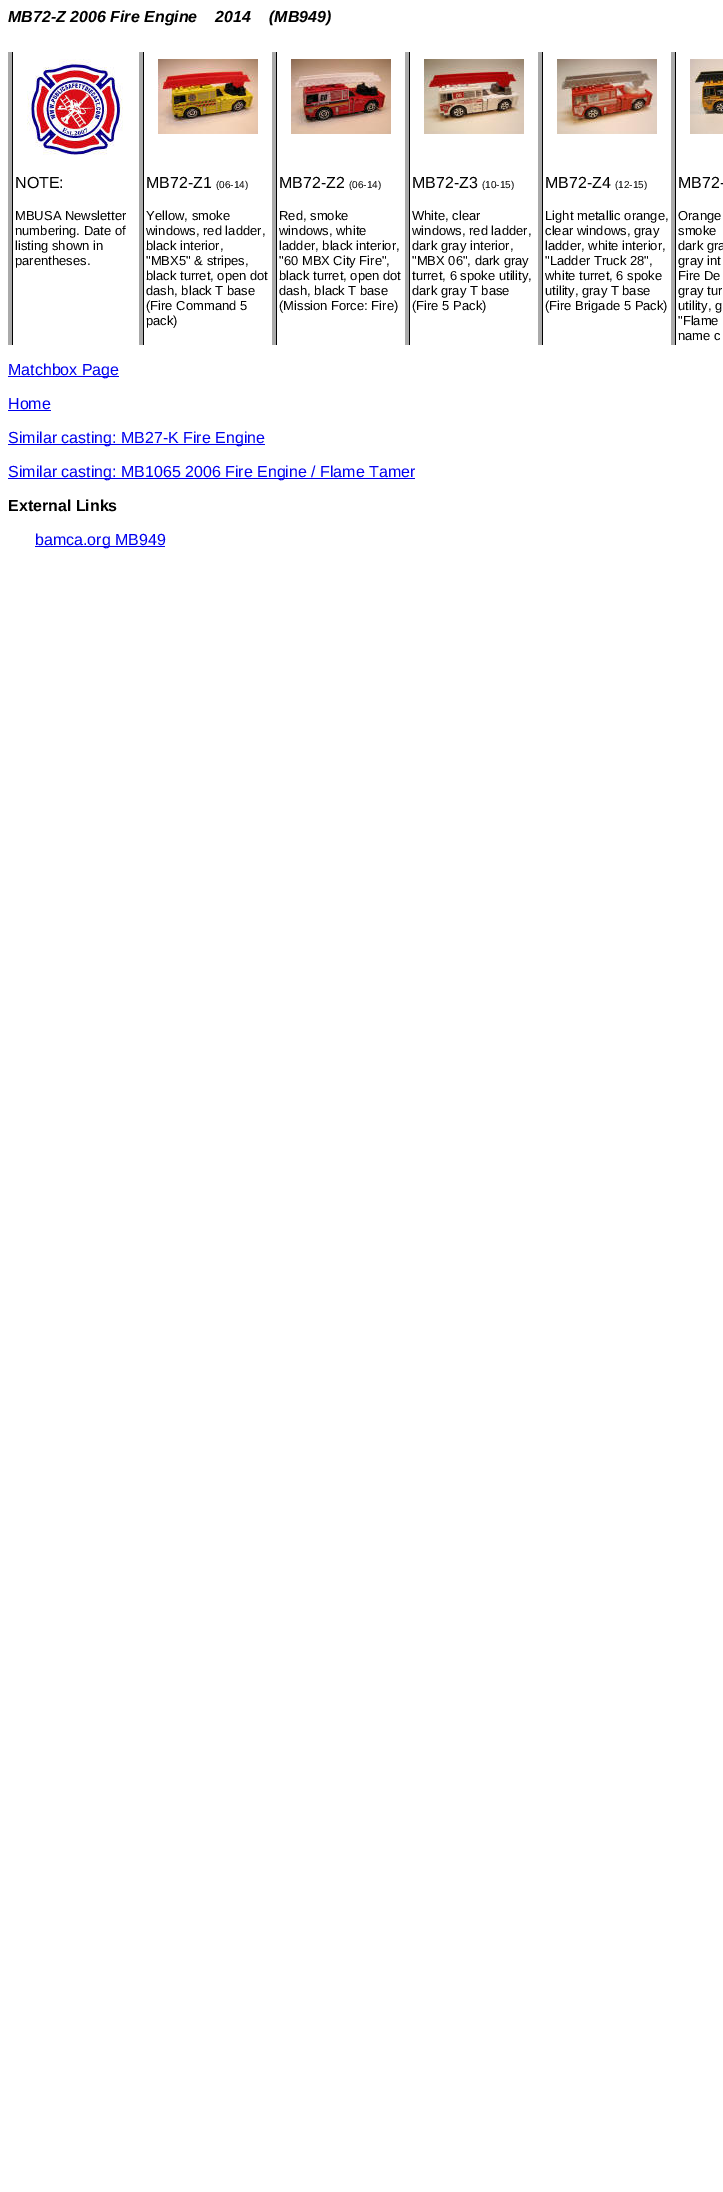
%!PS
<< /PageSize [723 2192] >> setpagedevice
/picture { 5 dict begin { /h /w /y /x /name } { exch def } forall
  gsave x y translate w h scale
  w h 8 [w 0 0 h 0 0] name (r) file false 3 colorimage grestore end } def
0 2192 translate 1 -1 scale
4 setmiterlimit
1 setgray
0 0 723 2192 rectfill
/LiberationSans-BoldItalic [16 0 0 -16 0 0] selectfont
0 setgray
8 22 moveto (MB72-Z 2006 Fire Engine    2014) show
269 22 moveto (\(MB949\)) show
0.667 setgray
8 52 4 293 rectfill
0 setgray
12 52 1 293 rectfill
(img1.rgb) 27 59 96 96 picture
/LiberationSans-Regular [16 0 0 -16 0 0] selectfont
15 188 moveto (NOTE:) show
/LiberationSans-Regular [13 0 0 -13 0 0] selectfont
15 220 moveto (MBUSA Newsletter) show
15 235 moveto (numbering. Date of) show
15 250 moveto (listing shown in) show
15 265 moveto (parentheses.) show
0.667 setgray
139 52 4 293 rectfill
0 setgray
143 52 1 293 rectfill
(img2.rgb) 158 59 100 75 picture
/LiberationSans-Regular [16 0 0 -16 0 0] selectfont
146 188 moveto (MB72-Z1) show
/LiberationSans-Regular [10 0 0 -10 0 0] selectfont
216 188 moveto (\(06-14\)) show
/LiberationSans-Regular [13 0 0 -13 0 0] selectfont
146 220 moveto (Yellow, smoke) show
146 235 moveto (windows, red ladder,) show
146 250 moveto (black interior,) show
146 265 moveto ("MBX5" & stripes,) show
146 280 moveto (black turret, open dot) show
146 295 moveto (dash, black T base) show
146 310 moveto (\(Fire Command 5) show
146 325 moveto (pack\)) show
0.667 setgray
272 52 4 293 rectfill
0 setgray
276 52 1 293 rectfill
(img3.rgb) 291 59 100 75 picture
/LiberationSans-Regular [16 0 0 -16 0 0] selectfont
279 188 moveto (MB72-Z2) show
/LiberationSans-Regular [10 0 0 -10 0 0] selectfont
349 188 moveto (\(06-14\)) show
/LiberationSans-Regular [13 0 0 -13 0 0] selectfont
279 220 moveto (Red, smoke) show
279 235 moveto (windows, white) show
279 250 moveto (ladder, black interior,) show
279 265 moveto ("60 MBX City Fire",) show
279 280 moveto (black turret, open dot) show
279 295 moveto (dash, black T base) show
279 310 moveto (\(Mission Force: Fire\)) show
0.667 setgray
405 52 4 293 rectfill
0 setgray
409 52 1 293 rectfill
(img4.rgb) 424 59 100 75 picture
/LiberationSans-Regular [16 0 0 -16 0 0] selectfont
412 188 moveto (MB72-Z3) show
/LiberationSans-Regular [10 0 0 -10 0 0] selectfont
482 188 moveto (\(10-15\)) show
/LiberationSans-Regular [13 0 0 -13 0 0] selectfont
412 220 moveto (White, clear) show
412 235 moveto (windows, red ladder,) show
412 250 moveto (dark gray interior,) show
412 265 moveto ("MBX 06", dark gray) show
412 280 moveto (turret, 6 spoke utility,) show
412 295 moveto (dark gray T base) show
412 310 moveto (\(Fire 5 Pack\)) show
0.667 setgray
538 52 4 293 rectfill
0 setgray
542 52 1 293 rectfill
(img5.rgb) 557 59 100 75 picture
/LiberationSans-Regular [16 0 0 -16 0 0] selectfont
545 188 moveto (MB72-Z4) show
/LiberationSans-Regular [10 0 0 -10 0 0] selectfont
615 188 moveto (\(12-15\)) show
/LiberationSans-Regular [13 0 0 -13 0 0] selectfont
545 220 moveto (Light metallic orange,) show
545 235 moveto (clear windows, gray) show
545 250 moveto (ladder, white interior,) show
545 265 moveto ("Ladder Truck 28",) show
545 280 moveto (white turret, 6 spoke) show
545 295 moveto (utility, gray T base) show
545 310 moveto (\(Fire Brigade 5 Pack\)) show
0.667 setgray
671 52 4 293 rectfill
0 setgray
675 52 1 293 rectfill
(img6.rgb) 690 59 33 75 picture
/LiberationSans-Regular [16 0 0 -16 0 0] selectfont
678 188 moveto (MB72-) show
/LiberationSans-Regular [13 0 0 -13 0 0] selectfont
678 220 moveto (Orange) show
678 235 moveto (smoke) show
678 250 moveto (dark gra) show
678 265 moveto (gray int) show
678 280 moveto (Fire De) show
678 295 moveto (gray tur) show
678 310 moveto (utility, g) show
678 325 moveto ("Flame) show
678 340 moveto (name c) show
0 0 0.933 setrgbcolor
8 376 111 1 rectfill
/LiberationSans-Regular [16 0 0 -16 0 0] selectfont
8 375 moveto (Matchbox Page) show
8 409 moveto (Home) show
8 410 43 1 rectfill
8 444 257 1 rectfill
8 443 moveto (Similar casting: MB27-K Fire Engine) show
8 478 407 1 rectfill
8 477 moveto (Similar casting: MB1065 2006 Fire Engine / Flame Tamer) show
/LiberationSans-Bold [16 0 0 -16 0 0] selectfont
0 setgray
8 511 moveto (External Links) show
0 0 0.933 setrgbcolor
35 546 130 1 rectfill
/LiberationSans-Regular [16 0 0 -16 0 0] selectfont
35 545 moveto (bamca.org MB949) show
showpage
